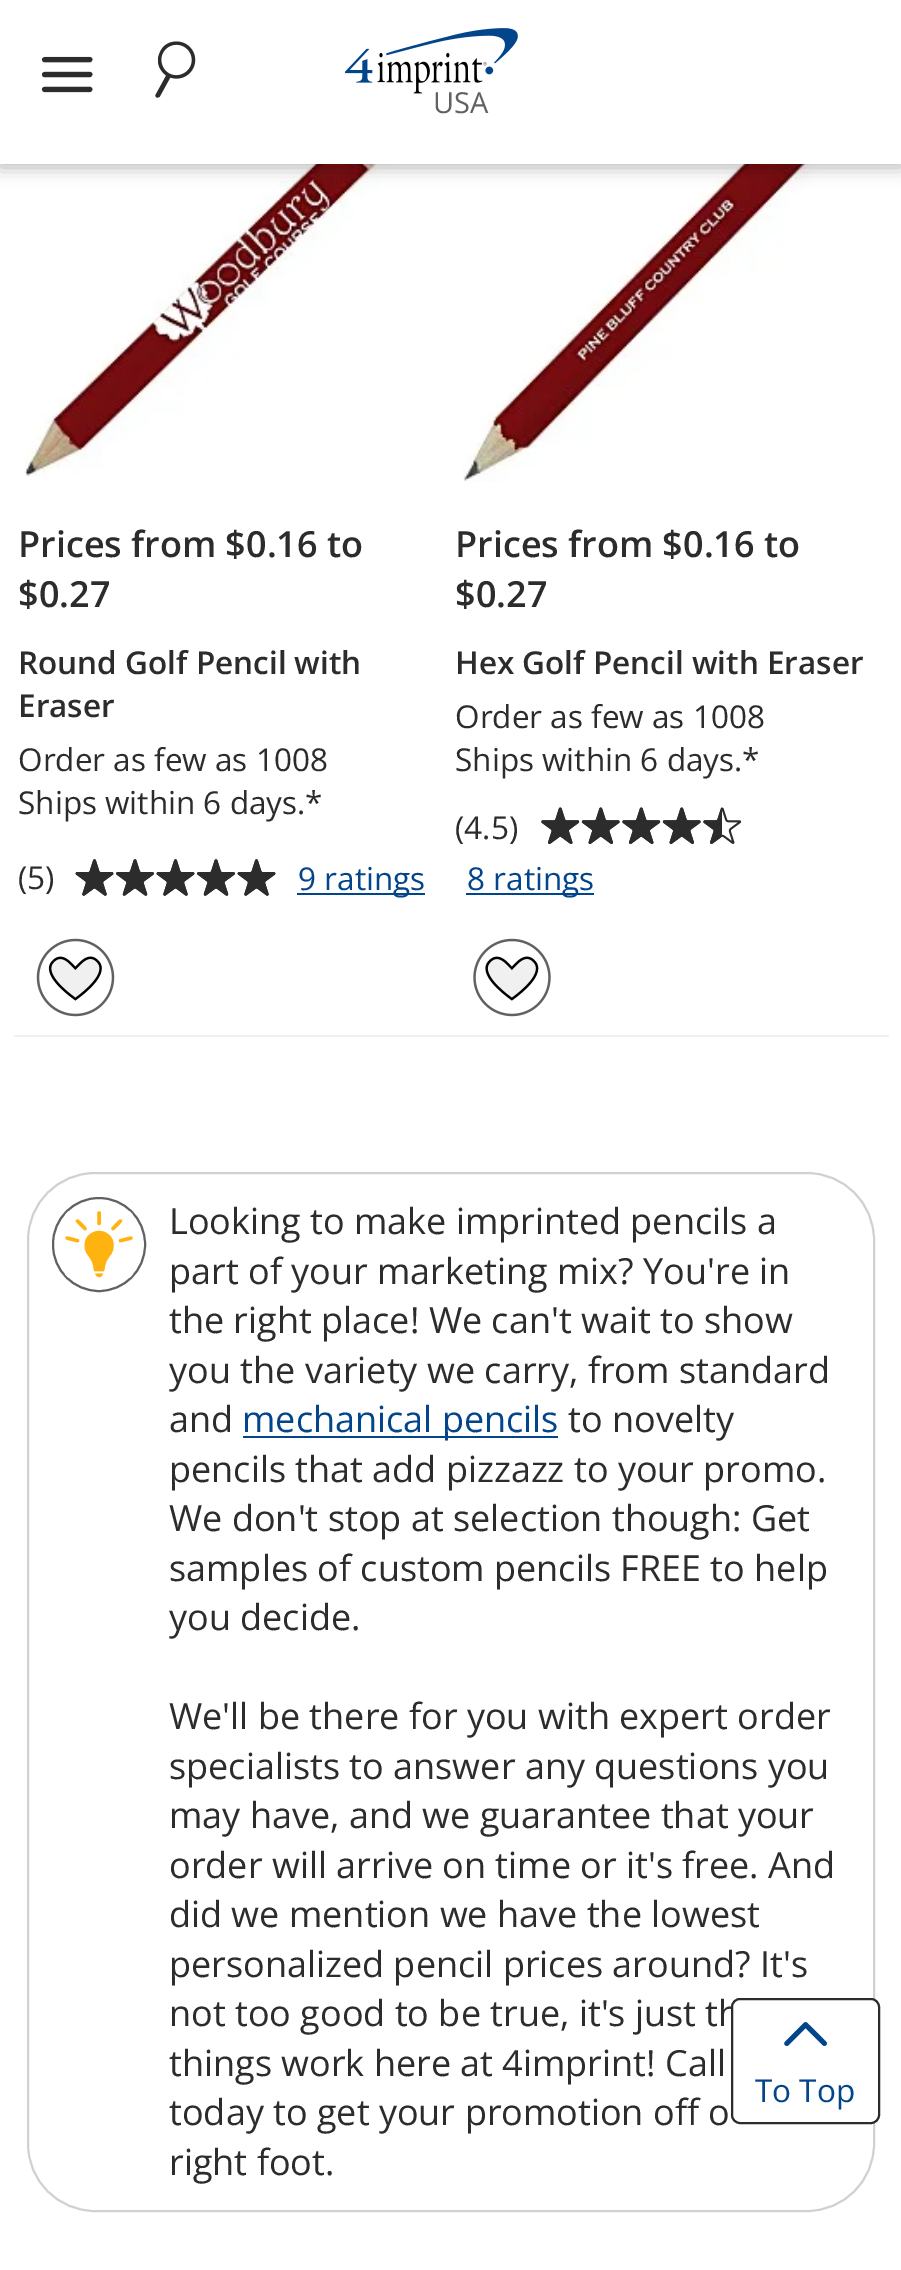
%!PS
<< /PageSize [901 2270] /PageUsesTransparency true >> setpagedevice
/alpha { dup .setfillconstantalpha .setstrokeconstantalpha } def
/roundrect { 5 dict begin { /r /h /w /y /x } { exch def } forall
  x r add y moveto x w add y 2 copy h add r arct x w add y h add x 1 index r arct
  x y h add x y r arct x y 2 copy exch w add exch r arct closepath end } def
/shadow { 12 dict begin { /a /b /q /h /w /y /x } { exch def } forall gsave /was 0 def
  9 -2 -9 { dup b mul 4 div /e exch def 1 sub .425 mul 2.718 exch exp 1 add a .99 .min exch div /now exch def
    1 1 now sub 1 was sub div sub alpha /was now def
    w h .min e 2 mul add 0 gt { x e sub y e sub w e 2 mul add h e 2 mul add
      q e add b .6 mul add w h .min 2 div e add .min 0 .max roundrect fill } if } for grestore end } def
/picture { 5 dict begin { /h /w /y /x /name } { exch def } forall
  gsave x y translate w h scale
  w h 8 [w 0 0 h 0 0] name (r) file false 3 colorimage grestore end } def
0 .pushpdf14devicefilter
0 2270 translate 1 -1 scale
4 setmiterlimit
1 setgray
0 0 901 2270 rectfill
(img4.rgb) 24 164 424 312 picture
(img10.rgb) 463 164 421 318 picture
0 setgray
0 2 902 165 0 9 0.3 shadow
1 setgray
0 0 901 164 rectfill
(img1.rgb) 41 56 52 37 picture
(img2.rgb) 155 41 41 57 picture
(img3.rgb) 344 28 174 66 picture
/OpenSans-Regular [29 0 0 -29 0 0] selectfont
0.38 setgray
433 113 moveto (USA) show
0.941 setgray
14 1035 875 2 rectfill
/OpenSans-SemiBold [36 0 0 -36 0 0] selectfont
0.173 setgray
18 557 moveto (Prices from $0.16 to) show
18 607 moveto ($0.27) show
/OpenSans-SemiBold [31.5 0 0 -31.5 0 0] selectfont
18 674 moveto (Round Golf Pencil with) show
18 717 moveto (Eraser) show
/OpenSans-Regular [31.5 0 0 -31.5 0 0] selectfont
18 771 moveto (Order as few as 1008) show
18 814 moveto (Ships within 6 days.*) show
18 889 moveto (\(5\)) show
(img5.rgb) 75 859 39 37 picture
(img6.rgb) 116 859 38 37 picture
(img5.rgb) 156 859 39 37 picture
(img6.rgb) 197 859 38 37 picture
(img5.rgb) 237 859 39 37 picture
(img7.rgb) 75 859 39 37 picture
(img8.rgb) 116 859 38 37 picture
(img7.rgb) 156 859 39 37 picture
(img8.rgb) 197 859 38 37 picture
(img7.rgb) 237 859 39 37 picture
0.008 0.271 0.545 setrgbcolor
297 893 128 2 rectfill
298 890 moveto (9 ratings) show
(img9.rgb) 36 938 79 79 picture
/OpenSans-SemiBold [36 0 0 -36 0 0] selectfont
0.173 setgray
455 557 moveto (Prices from $0.16 to) show
455 607 moveto ($0.27) show
/OpenSans-SemiBold [31.5 0 0 -31.5 0 0] selectfont
455 674 moveto (Hex Golf Pencil with Eraser) show
/OpenSans-Regular [31.5 0 0 -31.5 0 0] selectfont
455 728 moveto (Order as few as 1008) show
455 771 moveto (Ships within 6 days.*) show
455 839 moveto (\(4.5\)) show
(img11.rgb) 541 807 39 37 picture
(img12.rgb) 581 807 39 37 picture
(img11.rgb) 622 807 39 37 picture
(img12.rgb) 662 807 39 37 picture
(img11.rgb) 703 807 39 37 picture
(img13.rgb) 541 807 39 37 picture
(img14.rgb) 581 807 39 37 picture
(img13.rgb) 622 807 39 37 picture
(img14.rgb) 662 807 39 37 picture
(img15.rgb) 703 807 19 37 picture
0.008 0.271 0.545 setrgbcolor
466 893 128 2 rectfill
467 890 moveto (8 ratings) show
(img16.rgb) 473 938 78 79 picture
0.82 setgray
2 setlinewidth
28 1173 846 1038 67 roundrect stroke
0.38 setgray
53 1198 92 93 46 roundrect stroke
(img17.rgb) 65 1211 68 67 picture
/OpenSans-Regular [36 0 0 -36 0 0] selectfont
0.173 setgray
169 1234 moveto (Looking to make imprinted pencils a) show
169 1284 moveto (part of your marketing mix? You're in) show
169 1333 moveto (the right place! We can't wait to show) show
169 1383 moveto (you the variety we carry, from standard) show
169 1432 moveto (and) show
0.008 0.271 0.545 setrgbcolor
243 1436 315 2 rectfill
242 1432 moveto (mechanical pencils) show
0.173 setgray
568 1432 moveto (to novelty) show
169 1482 moveto (pencils that add pizzazz to your promo.) show
169 1531 moveto (We don't stop at selection though: Get) show
169 1581 moveto (samples of custom pencils FREE to help) show
169 1630 moveto (you decide.) show
169 1729 moveto (We'll be there for you with expert order) show
169 1779 moveto (specialists to answer any questions you) show
169 1828 moveto (may have, and we guarantee that your) show
169 1878 moveto (order will arrive on time or it's free. And) show
169 1927 moveto (did we mention we have the lowest) show
169 1977 moveto (personalized pencil prices around? It's) show
169 2026 moveto (not too good to be true, it's just th) show
169 2076 moveto (things work here at 4imprint! Call) show
169 2125 moveto (today to get your promotion off o) show
169 2175 moveto (right foot.) show
1 setgray
732 1999 147 124 8 roundrect gsave fill grestore
0.173 setgray
stroke
(img18.rgb) 784 2022 43 24 picture
/OpenSans-Regular [31.5 0 0 -31.5 0 0] selectfont
0.008 0.271 0.545 setrgbcolor
755 2102 moveto (To Top) show
.poppdf14devicefilter showpage
